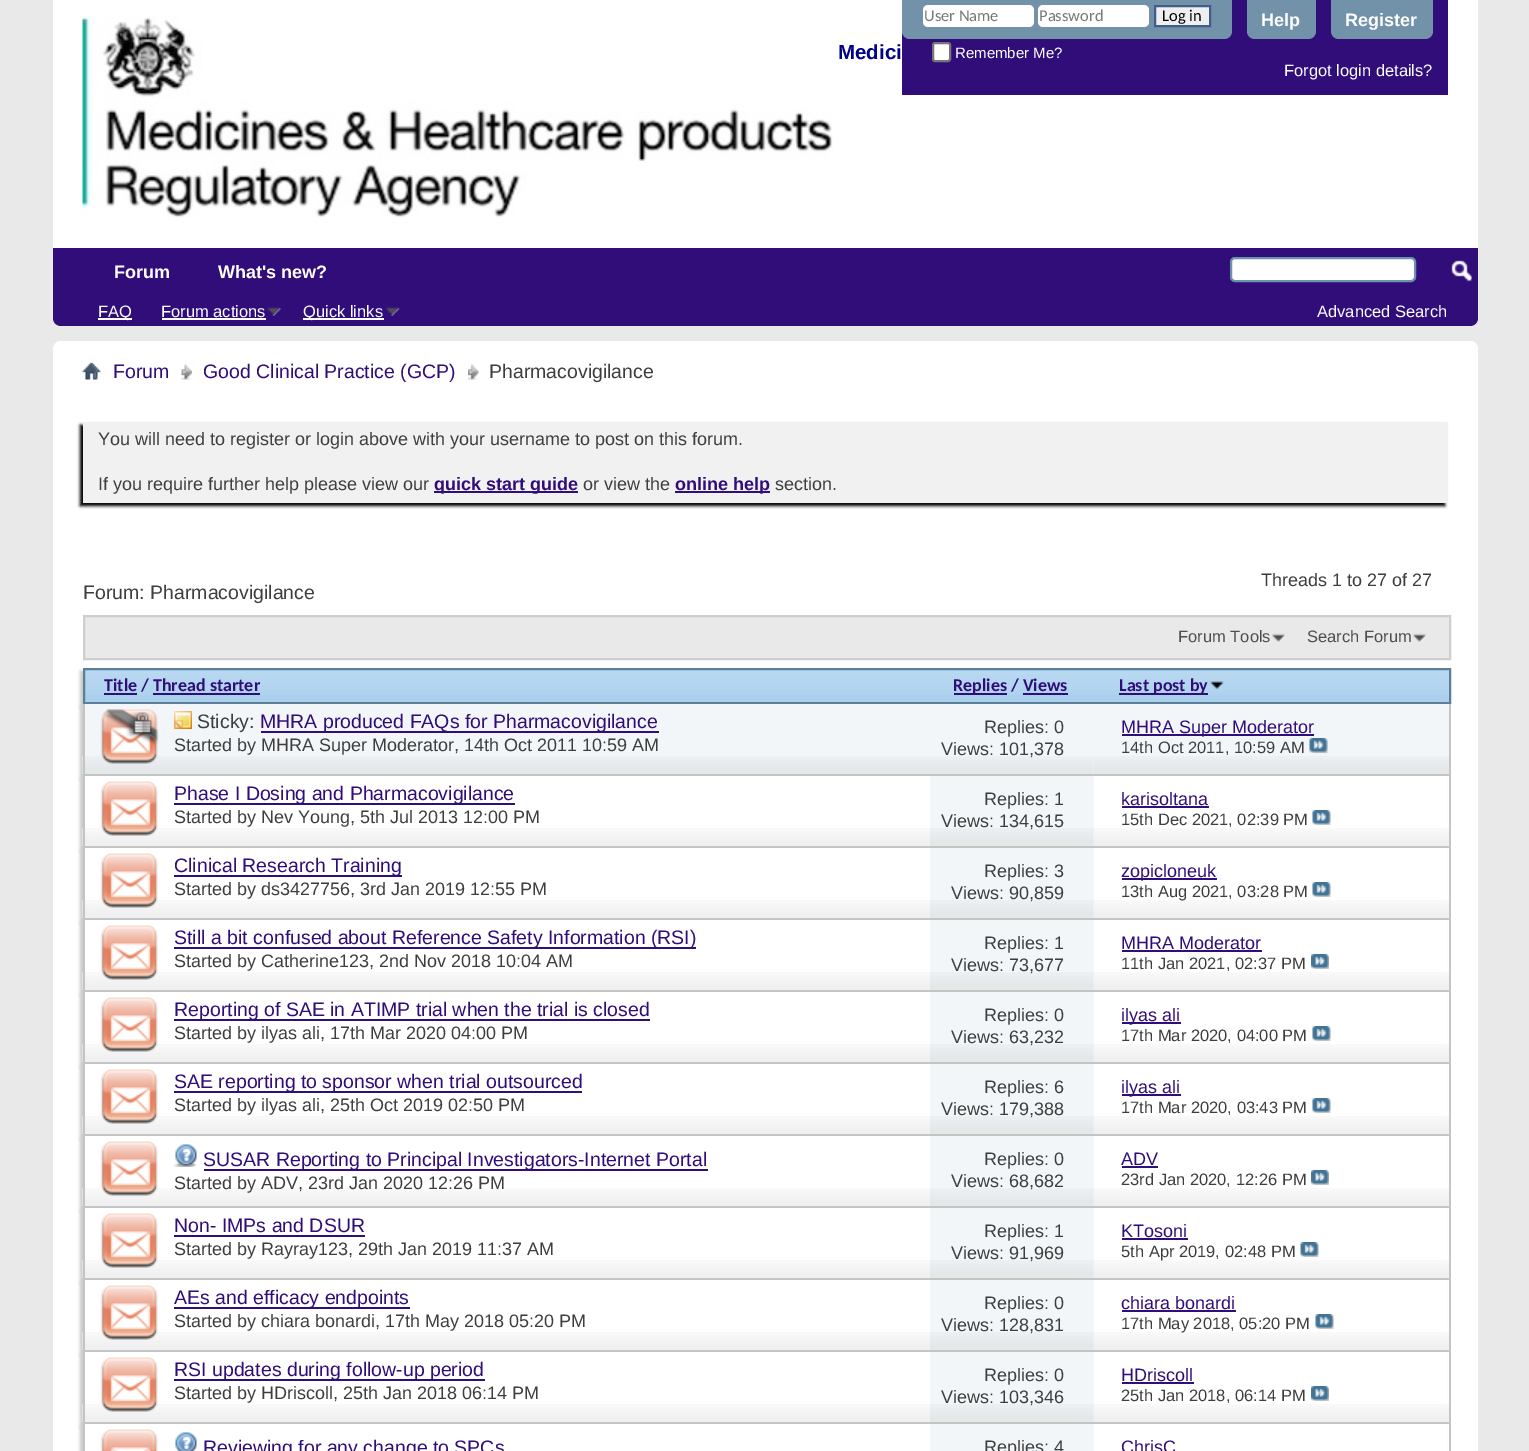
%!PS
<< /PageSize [1529 1451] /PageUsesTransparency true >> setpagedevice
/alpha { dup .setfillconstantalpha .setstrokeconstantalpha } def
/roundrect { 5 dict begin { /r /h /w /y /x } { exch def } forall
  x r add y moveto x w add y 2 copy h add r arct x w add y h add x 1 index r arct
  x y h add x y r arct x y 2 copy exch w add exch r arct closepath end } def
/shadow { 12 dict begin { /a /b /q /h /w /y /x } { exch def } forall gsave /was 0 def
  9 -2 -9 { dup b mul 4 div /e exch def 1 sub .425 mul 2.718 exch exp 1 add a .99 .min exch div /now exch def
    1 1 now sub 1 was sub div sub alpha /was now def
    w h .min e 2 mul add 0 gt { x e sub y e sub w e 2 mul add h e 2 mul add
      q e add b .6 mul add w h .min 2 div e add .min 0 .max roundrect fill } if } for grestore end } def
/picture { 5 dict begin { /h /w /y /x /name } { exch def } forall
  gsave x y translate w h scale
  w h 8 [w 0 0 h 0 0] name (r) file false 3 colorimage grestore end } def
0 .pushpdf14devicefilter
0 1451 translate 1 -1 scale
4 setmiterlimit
0.914 setgray
0 0 1529 1451 rectfill
1 setgray
newpath 53 0 moveto 1478 0 lineto 1478 318 lineto 1478 322.5 1474.5 326 1470 326 curveto 61 326 lineto 56.5 326 53 322.5 53 318 curveto closepath fill
(img1.rgb) 82 15 751 203 picture
/LiberationSans-Bold [20.5 0 0 -20.5 0 0] selectfont
0 0 0.533 setrgbcolor
838 59 moveto (Medici) show
0.192 0.051 0.478 setrgbcolor
902 0 546 95 rectfill
0.443 0.573 0.659 setrgbcolor
newpath 902 0 moveto 1232 0 lineto 1232 31 lineto 1232 35.5 1228.5 39 1224 39 curveto 910 39 lineto 905.5 39 902 35.5 902 31 curveto closepath fill
1 setgray
923 5 111 22 5 roundrect fill
/Carlito-Regular [16.5 0 0 -16.5 0 0] selectfont
0.467 setgray
924 21 moveto (User Name) show
1 setgray
1038 5 111 22 5 roundrect fill
0.467 setgray
1039 21 moveto (Password) show
0.937 setgray
newpath 1155 6 moveto 1210 6 lineto 1210 26 lineto 1155 26 lineto closepath gsave fill grestore
0.255 0.365 0.553 setrgbcolor
2 setlinewidth
stroke
0 setgray
1162 21 moveto (Log in) show
1 setgray
933 43 17 18 2 roundrect gsave fill grestore
0.463 setgray
stroke
/LiberationSans-Regular [15 0 0 -15 0 0] selectfont
1 setgray
955 58 moveto (Remember Me?) show
0.443 0.573 0.659 setrgbcolor
newpath 1247 0 moveto 1316 0 lineto 1316 31 lineto 1316 35.5 1312.5 39 1308 39 curveto 1255 39 lineto 1250.5 39 1247 35.5 1247 31 curveto closepath fill
/LiberationSans-Bold [18 0 0 -18 0 0] selectfont
1 setgray
1261 26 moveto (Help) show
0.443 0.573 0.659 setrgbcolor
newpath 1331 0 moveto 1433 0 lineto 1433 31 lineto 1433 35.5 1429.5 39 1425 39 curveto 1339 39 lineto 1334.5 39 1331 35.5 1331 31 curveto closepath fill
1 setgray
1345 26 moveto (Register) show
/LiberationSans-Regular [16.5 0 0 -16.5 0 0] selectfont
1284 76 moveto (Forgot login details?) show
0.192 0.051 0.478 setrgbcolor
newpath 53 248 moveto 1478 248 lineto 1478 318 lineto 1478 322.5 1474.5 326 1470 326 curveto 61 326 lineto 56.5 326 53 322.5 53 318 curveto closepath fill
/LiberationSans-Bold [18 0 0 -18 0 0] selectfont
1 setgray
218 278 moveto (What's new?) show
114 278 moveto (Forum) show
98 318 34 2 rectfill
/LiberationSans-Regular [16.5 0 0 -16.5 0 0] selectfont
98 317 moveto (FAQ) show
161 317 moveto (Forum actions) show
162 318 104 2 rectfill
(img2.rgb) 267 306 14 10 picture
303 318 81 2 rectfill
303 317 moveto (Quick links) show
(img3.rgb) 385 306 15 10 picture
1231 258 184 23 4 roundrect gsave fill grestore
0.42 0.569 0.671 setrgbcolor
stroke
(img4.rgb) 1451 260 21 22 picture
1 setgray
1317 317 moveto (Advanced Search) show
53 341 1425 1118 8 roundrect fill
(img5.rgb) 82 362 19 18 picture
(img6.rgb) 181 364 11 16 picture
/LiberationSans-Regular [19.5 0 0 -19.5 0 0] selectfont
0.192 0.051 0.478 setrgbcolor
113 378 moveto (Forum) show
(img7.rgb) 468 364 11 16 picture
203 378 moveto (Good Clinical Practice \(GCP\)) show
0.243 setgray
489 378 moveto (Pharmacovigilance) show
0 setgray
80 425 1365 81 0 1.5 1 shadow
0.945 setgray
83 422 1365 81 rectfill
/LiberationSans-Regular [18 0 0 -18 0 0] selectfont
0.243 setgray
98 445 moveto (You will need to register or login above with your username to post on this forum.) show
98 490 moveto (If you require further help please view our) show
0.192 0.051 0.478 setrgbcolor
434 491 144 2 rectfill
/LiberationSans-Bold [18 0 0 -18 0 0] selectfont
434 490 moveto (quick start guide) show
/LiberationSans-Regular [18 0 0 -18 0 0] selectfont
0.243 setgray
583 490 moveto (or view the) show
0.192 0.051 0.478 setrgbcolor
675 491 95 2 rectfill
/LiberationSans-Bold [18 0 0 -18 0 0] selectfont
675 490 moveto (online help) show
/LiberationSans-Regular [18 0 0 -18 0 0] selectfont
0.243 setgray
775 490 moveto (section.) show
1261 586 moveto (Threads 1 to 27 of 27) show
/LiberationSans-Regular [19.5 0 0 -19.5 0 0] selectfont
83 599 moveto (Forum: Pharmacovigilance) show
0.914 setgray
newpath 84 616 moveto 1450 616 lineto 1450 659 lineto 84 659 lineto closepath gsave fill grestore
0.808 setgray
stroke
(img8.rgb) 1272 633 14 10 picture
/LiberationSans-Regular [16.5 0 0 -16.5 0 0] selectfont
0.306 setgray
1178 642 moveto (Forum Tools) show
(img8.rgb) 1413 633 14 10 picture
1307 642 moveto (Search Forum) show
0.784 setgray
80 671 1368 36 0 1.5 1 shadow
0.667 0.816 0.933 setrgbcolor
85 670 1364 32 rectfill
(img9.rgb) 85 670 1364 25 picture
0.353 0.498 0.592 setrgbcolor
84 669 1366 34 rectstroke
/Carlito-Bold [18 0 0 -18 0 0] selectfont
0.192 0.051 0.478 setrgbcolor
104 691 moveto (Title / Thread starter) show
104 693 33 2 rectfill
153 693 107 2 rectfill
954 693 53 2 rectfill
953 691 moveto (Replies / Views) show
1023 693 45 2 rectfill
1119 693 89 2 rectfill
1119 691 moveto (Last post by) show
(img10.rgb) 1210 681 14 8 picture
0.784 setgray
80 707 1365 72 0 1.5 1 shadow
0.949 0.965 0.973 setrgbcolor
85 704 1364 70 rectfill
(img11.rgb) 82 756 1367 18 picture
0.769 setgray
1449 704 2 72 rectfill
83 774 1368 2 rectfill
83 704 2 72 rectfill
(img12.rgb) 100 709 59 55 picture
(img13.rgb) 174 711 18 18 picture
/LiberationSans-Regular [19.5 0 0 -19.5 0 0] selectfont
0.243 setgray
197 728 moveto (Sticky:) show
0.192 0.051 0.478 setrgbcolor
261 731 398 2 rectfill
260 728 moveto (MHRA produced FAQs for Pharmacovigilance) show
/LiberationSans-Regular [18 0 0 -18 0 0] selectfont
0.243 setgray
174 751 moveto (Started by MHRA Super Moderator, 14th Oct 2011 10:59 AM) show
0.949 0.965 0.973 setrgbcolor
930 756 164 18 rectfill
(img14.rgb) 930 756 164 18 picture
0.243 setgray
984 733 moveto (Replies: 0) show
941 755 moveto (Views: 101,378) show
0.192 0.051 0.478 setrgbcolor
1122 734 192 2 rectfill
1121 733 moveto (MHRA Super Moderator) show
/LiberationSans-Regular [16.5 0 0 -16.5 0 0] selectfont
0.243 setgray
1121 753 moveto (14th Oct 2011, 10:59 AM) show
(img15.rgb) 1309 738 19 15 picture
0.784 setgray
80 779 1365 72 0 1.5 1 shadow
1 setgray
85 776 1362 70 rectfill
(img16.rgb) 82 828 1367 18 picture
0.769 setgray
1449 776 2 72 rectfill
83 846 1368 2 rectfill
83 776 2 72 rectfill
(img17.rgb) 100 781 58 55 picture
0.192 0.051 0.478 setrgbcolor
174 803 341 2 rectfill
/LiberationSans-Regular [19.5 0 0 -19.5 0 0] selectfont
174 800 moveto (Phase I Dosing and Pharmacovigilance) show
/LiberationSans-Regular [18 0 0 -18 0 0] selectfont
0.243 setgray
174 823 moveto (Started by Nev Young, 5th Jul 2013 12:00 PM) show
0.949 0.965 0.973 setrgbcolor
930 776 164 70 rectfill
(img18.rgb) 930 828 164 18 picture
0.243 setgray
984 805 moveto (Replies: 1) show
941 827 moveto (Views: 134,615) show
0.192 0.051 0.478 setrgbcolor
1121 805 moveto (karisoltana) show
1122 806 87 2 rectfill
/LiberationSans-Regular [16.5 0 0 -16.5 0 0] selectfont
0.243 setgray
1121 825 moveto (15th Dec 2021, 02:39 PM) show
(img19.rgb) 1312 810 19 15 picture
0.784 setgray
80 851 1365 72 0 1.5 1 shadow
1 setgray
85 848 1362 70 rectfill
(img16.rgb) 82 900 1367 18 picture
0.769 setgray
1449 848 2 72 rectfill
83 918 1368 2 rectfill
83 848 2 72 rectfill
(img17.rgb) 100 853 58 55 picture
0.192 0.051 0.478 setrgbcolor
174 875 228 2 rectfill
/LiberationSans-Regular [19.5 0 0 -19.5 0 0] selectfont
174 872 moveto (Clinical Research Training) show
/LiberationSans-Regular [18 0 0 -18 0 0] selectfont
0.243 setgray
174 895 moveto (Started by ds3427756, 3rd Jan 2019 12:55 PM) show
0.949 0.965 0.973 setrgbcolor
930 848 164 70 rectfill
(img18.rgb) 930 900 164 18 picture
0.243 setgray
984 877 moveto (Replies: 3) show
951 899 moveto (Views: 90,859) show
0.192 0.051 0.478 setrgbcolor
1122 878 95 2 rectfill
1121 877 moveto (zopicloneuk) show
/LiberationSans-Regular [16.5 0 0 -16.5 0 0] selectfont
0.243 setgray
1121 897 moveto (13th Aug 2021, 03:28 PM) show
(img19.rgb) 1312 882 19 15 picture
0.784 setgray
80 923 1365 72 0 1.5 1 shadow
1 setgray
85 920 1362 70 rectfill
(img16.rgb) 82 972 1367 18 picture
0.769 setgray
1449 920 2 72 rectfill
83 990 1368 2 rectfill
83 920 2 72 rectfill
(img17.rgb) 100 925 58 55 picture
0.192 0.051 0.478 setrgbcolor
174 947 522 2 rectfill
/LiberationSans-Regular [19.5 0 0 -19.5 0 0] selectfont
174 944 moveto (Still a bit confused about Reference Safety Information \(RSI\)) show
/LiberationSans-Regular [18 0 0 -18 0 0] selectfont
0.243 setgray
174 967 moveto (Started by Catherine123, 2nd Nov 2018 10:04 AM) show
0.949 0.965 0.973 setrgbcolor
930 920 164 70 rectfill
(img18.rgb) 930 972 164 18 picture
0.243 setgray
984 949 moveto (Replies: 1) show
951 971 moveto (Views: 73,677) show
0.192 0.051 0.478 setrgbcolor
1121 949 moveto (MHRA Moderator) show
1122 950 140 2 rectfill
/LiberationSans-Regular [16.5 0 0 -16.5 0 0] selectfont
0.243 setgray
1121 969 moveto (11th Jan 2021, 02:37 PM) show
(img20.rgb) 1311 954 18 15 picture
0.784 setgray
80 995 1365 72 0 1.5 1 shadow
1 setgray
85 992 1362 70 rectfill
(img21.rgb) 82 1044 1367 18 picture
0.769 setgray
1449 992 2 72 rectfill
83 1062 1368 2 rectfill
83 992 2 72 rectfill
(img22.rgb) 100 997 58 55 picture
0.192 0.051 0.478 setrgbcolor
174 1019 476 2 rectfill
/LiberationSans-Regular [19.5 0 0 -19.5 0 0] selectfont
174 1016 moveto (Reporting of SAE in ATIMP trial when the trial is closed) show
/LiberationSans-Regular [18 0 0 -18 0 0] selectfont
0.243 setgray
174 1039 moveto (Started by ilyas ali, 17th Mar 2020 04:00 PM) show
0.949 0.965 0.973 setrgbcolor
930 992 164 70 rectfill
(img23.rgb) 930 1044 164 18 picture
0.243 setgray
984 1021 moveto (Replies: 0) show
951 1043 moveto (Views: 63,232) show
0.192 0.051 0.478 setrgbcolor
1122 1022 59 2 rectfill
1121 1021 moveto (ilyas ali) show
/LiberationSans-Regular [16.5 0 0 -16.5 0 0] selectfont
0.243 setgray
1121 1041 moveto (17th Mar 2020, 04:00 PM) show
(img19.rgb) 1312 1026 19 15 picture
0.784 setgray
80 1067 1365 72 0 1.5 1 shadow
1 setgray
85 1064 1362 70 rectfill
(img21.rgb) 82 1116 1367 18 picture
0.769 setgray
1449 1064 2 72 rectfill
83 1134 1368 2 rectfill
83 1064 2 72 rectfill
(img24.rgb) 100 1069 58 55 picture
0.192 0.051 0.478 setrgbcolor
174 1091 408 2 rectfill
/LiberationSans-Regular [19.5 0 0 -19.5 0 0] selectfont
174 1088 moveto (SAE reporting to sponsor when trial outsourced) show
/LiberationSans-Regular [18 0 0 -18 0 0] selectfont
0.243 setgray
174 1111 moveto (Started by ilyas ali, 25th Oct 2019 02:50 PM) show
0.949 0.965 0.973 setrgbcolor
930 1064 164 70 rectfill
(img23.rgb) 930 1116 164 18 picture
0.243 setgray
984 1093 moveto (Replies: 6) show
941 1115 moveto (Views: 179,388) show
0.192 0.051 0.478 setrgbcolor
1122 1094 59 2 rectfill
1121 1093 moveto (ilyas ali) show
/LiberationSans-Regular [16.5 0 0 -16.5 0 0] selectfont
0.243 setgray
1121 1113 moveto (17th Mar 2020, 03:43 PM) show
(img19.rgb) 1312 1098 19 15 picture
0.784 setgray
80 1139 1365 72 0 1.5 1 shadow
1 setgray
85 1136 1362 70 rectfill
(img25.rgb) 82 1188 1367 18 picture
0.769 setgray
1449 1136 2 72 rectfill
83 1206 1368 2 rectfill
83 1136 2 72 rectfill
(img26.rgb) 100 1141 58 55 picture
(img27.rgb) 174 1144 23 23 picture
0.192 0.051 0.478 setrgbcolor
204 1169 504 2 rectfill
/LiberationSans-Regular [19.5 0 0 -19.5 0 0] selectfont
203 1166 moveto (SUSAR Reporting to Principal Investigators-Internet Portal) show
/LiberationSans-Regular [18 0 0 -18 0 0] selectfont
0.243 setgray
174 1189 moveto (Started by ADV, 23rd Jan 2020 12:26 PM) show
0.949 0.965 0.973 setrgbcolor
930 1136 164 70 rectfill
(img28.rgb) 930 1188 164 18 picture
0.243 setgray
984 1165 moveto (Replies: 0) show
951 1187 moveto (Views: 68,682) show
0.192 0.051 0.478 setrgbcolor
1121 1165 moveto (ADV) show
1122 1166 36 2 rectfill
/LiberationSans-Regular [16.5 0 0 -16.5 0 0] selectfont
0.243 setgray
1121 1185 moveto (23rd Jan 2020, 12:26 PM) show
(img20.rgb) 1311 1170 18 15 picture
0.784 setgray
80 1211 1365 72 0 1.5 1 shadow
1 setgray
85 1208 1362 70 rectfill
(img21.rgb) 82 1260 1367 18 picture
0.769 setgray
1449 1208 2 72 rectfill
83 1278 1368 2 rectfill
83 1208 2 72 rectfill
(img22.rgb) 100 1213 58 55 picture
/LiberationSans-Regular [19.5 0 0 -19.5 0 0] selectfont
0.192 0.051 0.478 setrgbcolor
174 1232 moveto (Non- IMPs and DSUR) show
174 1235 191 2 rectfill
/LiberationSans-Regular [18 0 0 -18 0 0] selectfont
0.243 setgray
174 1255 moveto (Started by Rayray123, 29th Jan 2019 11:37 AM) show
0.949 0.965 0.973 setrgbcolor
930 1208 164 70 rectfill
(img23.rgb) 930 1260 164 18 picture
0.243 setgray
984 1237 moveto (Replies: 1) show
951 1259 moveto (Views: 91,969) show
0.192 0.051 0.478 setrgbcolor
1121 1237 moveto (KTosoni) show
1122 1238 66 2 rectfill
/LiberationSans-Regular [16.5 0 0 -16.5 0 0] selectfont
0.243 setgray
1121 1257 moveto (5th Apr 2019, 02:48 PM) show
(img19.rgb) 1300 1242 19 15 picture
0.784 setgray
80 1283 1365 72 0 1.5 1 shadow
1 setgray
85 1280 1362 70 rectfill
(img21.rgb) 82 1332 1367 18 picture
0.769 setgray
1449 1280 2 72 rectfill
83 1350 1368 2 rectfill
83 1280 2 72 rectfill
(img24.rgb) 100 1285 58 55 picture
0.192 0.051 0.478 setrgbcolor
174 1307 236 2 rectfill
/LiberationSans-Regular [19.5 0 0 -19.5 0 0] selectfont
174 1304 moveto (AEs and efficacy endpoints) show
/LiberationSans-Regular [18 0 0 -18 0 0] selectfont
0.243 setgray
174 1327 moveto (Started by chiara bonardi, 17th May 2018 05:20 PM) show
0.949 0.965 0.973 setrgbcolor
930 1280 164 70 rectfill
(img23.rgb) 930 1332 164 18 picture
0.243 setgray
984 1309 moveto (Replies: 0) show
941 1331 moveto (Views: 128,831) show
0.192 0.051 0.478 setrgbcolor
1121 1309 moveto (chiara bonardi) show
1122 1310 114 2 rectfill
/LiberationSans-Regular [16.5 0 0 -16.5 0 0] selectfont
0.243 setgray
1121 1329 moveto (17th May 2018, 05:20 PM) show
(img19.rgb) 1315 1314 19 15 picture
0.784 setgray
80 1355 1365 72 0 1.5 1 shadow
1 setgray
85 1352 1362 70 rectfill
(img21.rgb) 82 1404 1367 18 picture
0.769 setgray
1449 1352 2 72 rectfill
83 1422 1368 2 rectfill
83 1352 2 72 rectfill
(img22.rgb) 100 1357 58 55 picture
0.192 0.051 0.478 setrgbcolor
174 1379 311 2 rectfill
/LiberationSans-Regular [19.5 0 0 -19.5 0 0] selectfont
174 1376 moveto (RSI updates during follow-up period) show
/LiberationSans-Regular [18 0 0 -18 0 0] selectfont
0.243 setgray
174 1399 moveto (Started by HDriscoll, 25th Jan 2018 06:14 PM) show
0.949 0.965 0.973 setrgbcolor
930 1352 164 70 rectfill
(img23.rgb) 930 1404 164 18 picture
0.243 setgray
984 1381 moveto (Replies: 0) show
941 1403 moveto (Views: 103,346) show
0.192 0.051 0.478 setrgbcolor
1121 1381 moveto (HDriscoll) show
1122 1382 72 2 rectfill
/LiberationSans-Regular [16.5 0 0 -16.5 0 0] selectfont
0.243 setgray
1121 1401 moveto (25th Jan 2018, 06:14 PM) show
(img20.rgb) 1311 1386 18 15 picture
0.784 setgray
80 1427 1365 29 0 1.5 1 shadow
1 setgray
85 1424 1362 27 rectfill
0.769 setgray
1449 1424 2 27 rectfill
83 1424 2 27 rectfill
(img29.rgb) 100 1429 58 22 picture
(img30.rgb) 175 1432 22 19 picture
/LiberationSans-Regular [19.5 0 0 -19.5 0 0] selectfont
0.192 0.051 0.478 setrgbcolor
203 1454 moveto (Reviewing for any change to SPCs) show
0.949 0.965 0.973 setrgbcolor
930 1424 164 27 rectfill
/LiberationSans-Regular [18 0 0 -18 0 0] selectfont
0.243 setgray
984 1453 moveto (Replies: 4) show
0.192 0.051 0.478 setrgbcolor
1121 1453 moveto (ChrisC) show
.poppdf14devicefilter showpage
